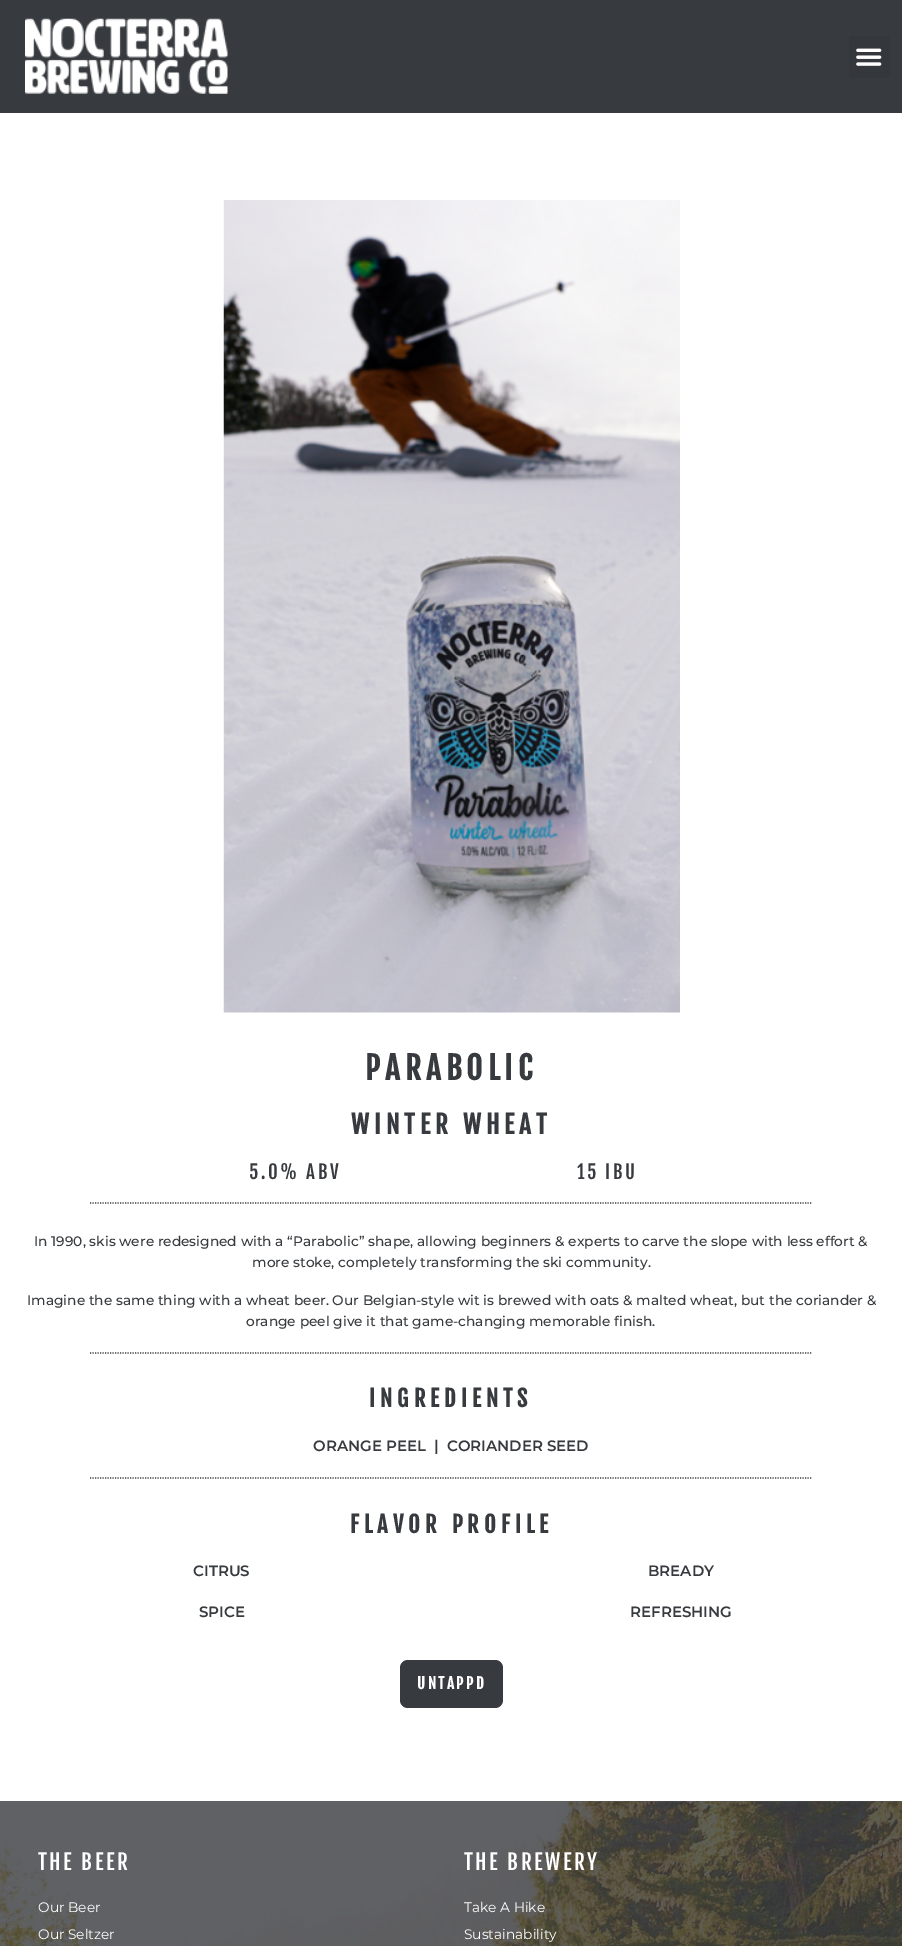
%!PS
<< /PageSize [902 1946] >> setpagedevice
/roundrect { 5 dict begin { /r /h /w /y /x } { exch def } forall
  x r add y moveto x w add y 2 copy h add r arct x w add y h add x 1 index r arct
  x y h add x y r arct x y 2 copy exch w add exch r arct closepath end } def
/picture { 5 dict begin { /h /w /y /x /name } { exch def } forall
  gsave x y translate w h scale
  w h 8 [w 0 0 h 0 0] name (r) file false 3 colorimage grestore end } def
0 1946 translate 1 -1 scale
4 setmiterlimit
1 setgray
0 0 902 1946 rectfill
0.216 0.227 0.243 setrgbcolor
0 0 902 113 rectfill
(img1.rgb) 25 18 203 76 picture
0.204 0.216 0.231 setrgbcolor
849 36 41 42 4 roundrect fill
(img2.rgb) 856 48 26 18 picture
(img3.rgb) 223 200 457 813 picture
/FjallaOne-Bold [31.25 0 0 -31.25 0 0] selectfont
0.216 0.227 0.243 setrgbcolor
365 1080 moveto 5 0 (PARABOLIC) ashow
/FjallaOne-Bold [25 0 0 -25 0 0] selectfont
351 1134 moveto 5 0 (WINTER WHEAT) ashow
/FjallaOne-Regular [18.75 0 0 -18.75 0 0] selectfont
249 1179 moveto 2.5 0 (5.0% ABV) ashow
577 1179 moveto 2.5 0 (15 IBU) ashow
1.2 setlinewidth
[1.25 1.25] 0 setdash
newpath 90 1203 moveto 812.5 1203 lineto stroke
/Montserrat-Medium [13.75 0 0 -13.75 0 0] selectfont
34 1246 moveto (In 1990, skis were redesigned with a “Parabolic” shape, allowing beginners & experts to carve the slope with less effort &) show
252 1267 moveto (more stoke, completely transforming the ski community.) show
27 1305 moveto (Imagine the same thing with a wheat beer. Our Belgian-style wit is brewed with oats & malted wheat, but the coriander &) show
246 1326 moveto (orange peel give it that game-changing memorable finish.) show
newpath 90 1353 moveto 812.5 1353 lineto stroke
/FjallaOne-Bold [22.5 0 0 -22.5 0 0] selectfont
369 1407 moveto 5 0 (INGREDIENTS) ashow
/Montserrat-SemiBold [15 0 0 -15 0 0] selectfont
313 1451 moveto (ORANGE PEEL  |  CORIANDER SEED) show
newpath 90 1478 moveto 812.5 1478 lineto stroke
/FjallaOne-Bold [22.5 0 0 -22.5 0 0] selectfont
350 1533 moveto 5 0 (FLAVOR PROFILE) ashow
/Montserrat-SemiBold [15 0 0 -15 0 0] selectfont
193 1576 moveto (CITRUS) show
648 1576 moveto (BREADY) show
199 1617 moveto (SPICE) show
630 1617 moveto (REFRESHING) show
400 1660 103 48 8 roundrect fill
/FjallaOne-Bold [15 0 0 -15 0 0] selectfont
1 setgray
417 1689 moveto 2.5 0 (UNTAPPD) ashow
(img4.rgb) 0 1801 902 145 picture
/FjallaOne-Regular [21.25 0 0 -21.25 0 0] selectfont
38 1870 moveto 2.5 0 (THE BEER) ashow
/Montserrat-Regular [13.75 0 0 -13.75 0 0] selectfont
38 1912 moveto (Our Beer) show
38 1939 moveto (Our Seltzer) show
/FjallaOne-Regular [21.25 0 0 -21.25 0 0] selectfont
464 1870 moveto 2.5 0 (THE BREWERY) ashow
/Montserrat-Regular [13.75 0 0 -13.75 0 0] selectfont
464 1912 moveto (Take A Hike) show
464 1939 moveto (Sustainability) show
showpage
